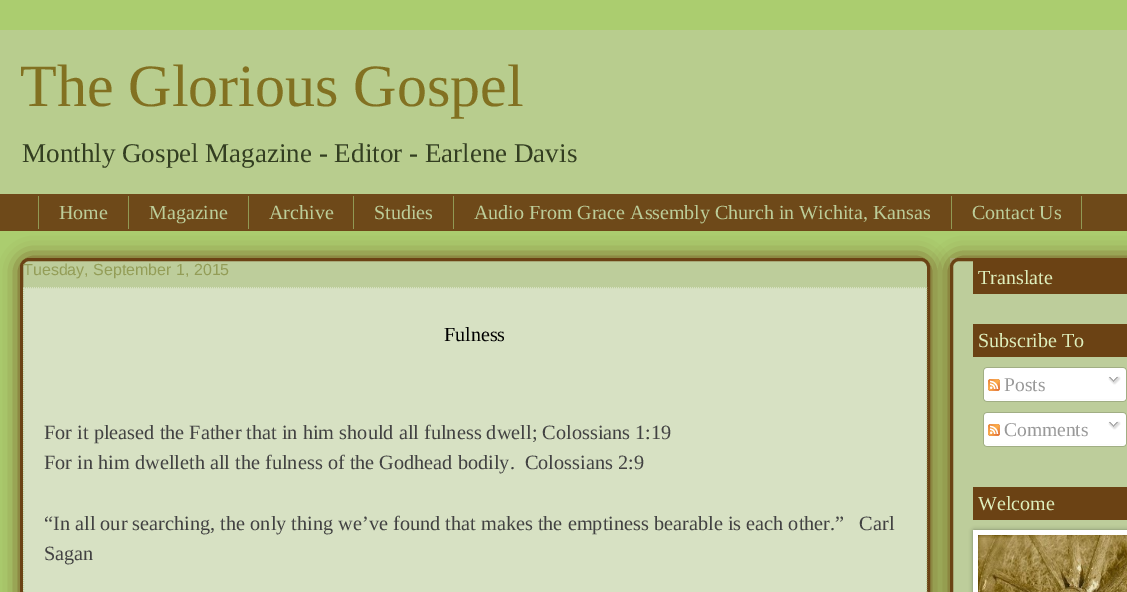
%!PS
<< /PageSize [1127 592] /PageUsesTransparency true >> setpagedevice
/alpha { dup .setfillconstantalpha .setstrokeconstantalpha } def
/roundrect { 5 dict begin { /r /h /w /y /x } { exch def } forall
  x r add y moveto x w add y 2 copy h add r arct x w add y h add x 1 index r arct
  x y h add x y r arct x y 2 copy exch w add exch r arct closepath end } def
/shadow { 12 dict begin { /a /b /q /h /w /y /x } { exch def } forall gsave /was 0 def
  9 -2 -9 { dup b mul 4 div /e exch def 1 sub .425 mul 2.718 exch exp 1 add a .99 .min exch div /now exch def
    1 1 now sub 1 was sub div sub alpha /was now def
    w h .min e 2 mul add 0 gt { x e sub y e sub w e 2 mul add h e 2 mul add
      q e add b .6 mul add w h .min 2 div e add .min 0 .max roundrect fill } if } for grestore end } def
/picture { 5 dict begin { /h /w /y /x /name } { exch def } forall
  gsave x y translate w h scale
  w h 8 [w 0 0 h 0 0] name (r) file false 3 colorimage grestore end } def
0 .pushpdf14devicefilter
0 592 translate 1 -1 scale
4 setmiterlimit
0.671 0.804 0.435 setrgbcolor
0 0 1127 592 rectfill
0.431 0.286 0.098 setrgbcolor
0 197 1127 34 rectfill
0.722 0.804 0.557 setrgbcolor
0 30 1127 164 rectfill
0.435 0.286 0.102 setrgbcolor
0 194 1127 3 rectfill
/LiberationSerif-Regular [60 0 0 -60 0 0] selectfont
0.51 0.443 0.129 setrgbcolor
20 106 moveto (The Glorious Gospel) show
/LiberationSerif-Regular [27.05 0 0 -27.05 0 0] selectfont
0.2 0.243 0.129 setrgbcolor
22 162 moveto (Monthly Gospel Magazine - Editor - Earlene Davis) show
0.569 0.6 0.329 setrgbcolor
128 196 1 33 rectfill
38 196 1 33 rectfill
/LiberationSerif-Regular [20 0 0 -20 0 0] selectfont
0.737 0.804 0.6 setrgbcolor
59 219 moveto (Home) show
0.569 0.6 0.329 setrgbcolor
248 196 1 33 rectfill
0.737 0.804 0.6 setrgbcolor
149 219 moveto (Magazine) show
0.569 0.6 0.329 setrgbcolor
353 196 1 33 rectfill
0.737 0.804 0.6 setrgbcolor
269 219 moveto (Archive) show
0.569 0.6 0.329 setrgbcolor
453 196 1 33 rectfill
0.737 0.804 0.6 setrgbcolor
374 219 moveto (Studies) show
0.569 0.6 0.329 setrgbcolor
951 196 1 33 rectfill
0.737 0.804 0.6 setrgbcolor
474 219 moveto (Audio From Grace Assembly Church in Wichita, Kansas) show
0.569 0.6 0.329 setrgbcolor
1081 196 1 33 rectfill
0.737 0.804 0.6 setrgbcolor
972 219 moveto (Contact Us) show
0.42 0.259 0.078 setrgbcolor
20 258 910 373 9 10 1 shadow
0.741 0.804 0.608 setrgbcolor
21.5 259.5 907 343 7.5 roundrect gsave fill grestore
0.42 0.259 0.078 setrgbcolor
3 setlinewidth
stroke
/LiberationSans-Regular [16 0 0 -16 0 0] selectfont
0.576 0.616 0.341 setrgbcolor
23 275 moveto (Tuesday, September 1, 2015) show
0.843 0.882 0.765 setrgbcolor
23 287 904 305 rectfill
0.741 0.804 0.608 setrgbcolor
1 setlinewidth
[1 1] 0 setdash
newpath 23 287.5 moveto 927 287.5 lineto stroke
newpath 926.5 287 moveto 926.5 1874 lineto stroke
newpath 23.5 287 moveto 23.5 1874 lineto stroke
/LiberationSerif-Regular [20 0 0 -20 0 0] selectfont
0 setgray
444 341 moveto (Fulness) show
/LiberationSerif-Regular [20.3 0 0 -20.3 0 0] selectfont
0.259 setgray
44 439 moveto (For it pleased the Father that in him should all fulness dwell; Colossians 1:19) show
44 469 moveto (For in him dwelleth all the fulness of the Godhead bodily.  Colossians 2:9) show
44 530 moveto (“In all our searching, the only thing we’ve found that makes the emptiness bearable is each other.”   Carl) show
44 560 moveto (Sagan) show
0.741 0.804 0.608 setrgbcolor
950 258 177 334 rectfill
gsave
newpath 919 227 moveto 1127 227 lineto 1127 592 lineto 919 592 lineto closepath 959 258 moveto 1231 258 lineto 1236 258 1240 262 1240 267 curveto 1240 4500 lineto 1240 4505 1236 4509 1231 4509 curveto 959 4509 lineto 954 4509 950 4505 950 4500 curveto 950 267 lineto 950 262 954 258 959 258 curveto closepath eoclip newpath
0.42 0.259 0.078 setrgbcolor
950 258 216 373 9 10 1 shadow
grestore
0.42 0.259 0.078 setrgbcolor
3 setlinewidth
[] 0 setdash
951.5 259.5 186 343 7.5 roundrect stroke
973 261 154 33 rectfill
/LiberationSerif-Regular [20 0 0 -20 0 0] selectfont
0.871 0.933 0.737 setrgbcolor
978 284 moveto (Translate) show
0.42 0.259 0.078 setrgbcolor
973 324 154 33 rectfill
0.871 0.933 0.737 setrgbcolor
978 347 moveto (Subscribe To) show
(img1.rgb) 983 367 144 32 picture
(img2.rgb) 988 379 12 12 picture
/LiberationSerif-Regular [19.5 0 0 -19.5 0 0] selectfont
0.6 setgray
1004 391 moveto (Posts) show
(img3.rgb) 1108 376 13 9 picture
(img4.rgb) 983 399 144 3 picture
(img1.rgb) 983 412 144 32 picture
(img2.rgb) 988 424 12 12 picture
1004 436 moveto (Comments) show
(img3.rgb) 1108 421 13 9 picture
(img4.rgb) 983 444 144 3 picture
0.42 0.259 0.078 setrgbcolor
973 487 154 33 rectfill
/LiberationSerif-Regular [20 0 0 -20 0 0] selectfont
0.871 0.933 0.737 setrgbcolor
978 510 moveto (Welcome) show
0 setgray
974 531 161 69 0 2.5 0.5 shadow
1 setgray
973 530 154 62 rectfill
(img5.rgb) 978 535 149 57 picture
.poppdf14devicefilter showpage
